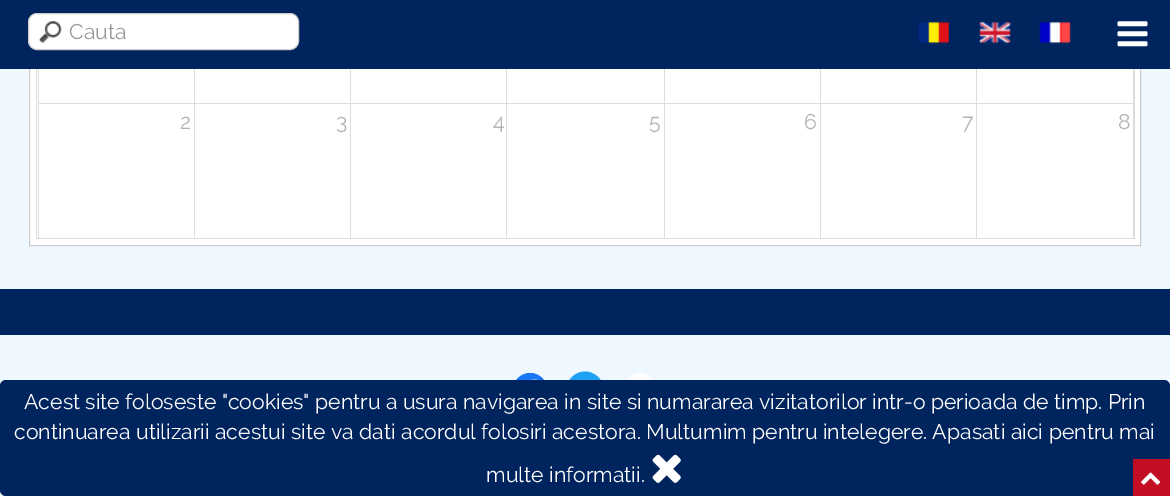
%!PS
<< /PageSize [1170 496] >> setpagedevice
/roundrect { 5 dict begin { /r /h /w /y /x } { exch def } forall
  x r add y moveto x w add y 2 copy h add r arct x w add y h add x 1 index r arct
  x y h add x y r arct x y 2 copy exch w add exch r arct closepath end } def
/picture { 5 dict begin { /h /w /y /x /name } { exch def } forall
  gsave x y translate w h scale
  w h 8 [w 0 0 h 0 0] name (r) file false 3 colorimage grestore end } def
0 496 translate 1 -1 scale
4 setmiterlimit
0.941 0.973 1 setrgbcolor
0 0 1170 496 rectfill
1 setgray
30 69 1110 176 rectfill
0.8 setgray
29.5 -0.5 1111 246 rectstroke
0 0.141 0.365 setrgbcolor
0 0 1170 69 rectfill
1 setgray
28.5 13.5 270 36 8.5 roundrect gsave fill grestore
0.8 setgray
stroke
(img1.rgb) 38 21 24 22 picture
/Raleway-Regular [21.25 0 0 -21.25 0 0] selectfont
0.6 setgray
69 39 moveto (Cauta) show
(img2.rgb) 918 22 31 22 picture
(img3.rgb) 979 22 32 22 picture
(img4.rgb) 1039 22 32 22 picture
(img5.rgb) 1117 21 31 26 picture
0.867 setgray
1134 69 1 170 rectfill
36 238 1099 1 rectfill
36 69 1 170 rectfill
1133 69 1 35 rectfill
976 103 158 1 rectfill
976 69 1 35 rectfill
820 103 158 1 rectfill
820 69 1 35 rectfill
664 103 157 1 rectfill
664 69 1 35 rectfill
506 103 159 1 rectfill
506 69 1 35 rectfill
350 103 158 1 rectfill
350 69 1 35 rectfill
194 103 157 1 rectfill
194 69 1 35 rectfill
38 103 157 1 rectfill
38 69 1 169 rectfill
194 103 1 135 rectfill
350 103 1 135 rectfill
506 103 1 135 rectfill
664 103 1 135 rectfill
820 103 1 135 rectfill
1133 103 1 135 rectfill
976 103 1 135 rectfill
0.702 setgray
180 129 moveto (2) show
336 129 moveto (3) show
493 129 moveto (4) show
649 129 moveto (5) show
804 129 moveto (6) show
962 129 moveto (7) show
1118 129 moveto (8) show
0 0.141 0.365 setrgbcolor
0 289 1170 46 rectfill
(img6.rgb) 516 372 28 8 picture
(img7.rgb) 569 371 32 9 picture
(img8.rgb) 626 373 28 7 picture
0 380 1170 116 6 roundrect fill
1 setgray
24 409 moveto (Acest site foloseste "cookies" pentru a usura navigarea in site si numararea vizitatorilor intr-o perioada de timp. Prin) show
14 439 moveto (continuarea utilizarii acestui site va dati acordul folosiri acestora. Multumim pentru intelegere. Apasati aici pentru mai) show
486 482 moveto (multe informatii.) show
(img9.rgb) 652 454 29 29 picture
0.761 0.051 0.137 setrgbcolor
1133 459 37 37 rectfill
(img10.rgb) 1141 472 20 13 picture
showpage
